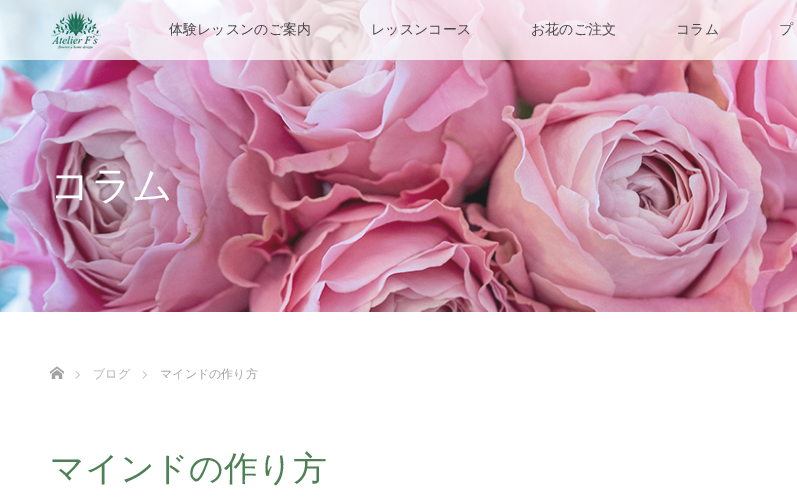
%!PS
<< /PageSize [797 500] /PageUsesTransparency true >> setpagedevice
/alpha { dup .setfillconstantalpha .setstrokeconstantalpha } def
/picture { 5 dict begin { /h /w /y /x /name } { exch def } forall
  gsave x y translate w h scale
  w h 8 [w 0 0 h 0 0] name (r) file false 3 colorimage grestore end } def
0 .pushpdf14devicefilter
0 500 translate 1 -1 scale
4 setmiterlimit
1 setgray
0 0 797 500 rectfill
(img2.rgb) 0 0 797 312 picture
0.7 alpha
0 0 797 60 rectfill
1 alpha
(img1.rgb) 51 11 50 38 picture
/WenQuanYiZenHei-Medium [14 0 0 -14 0 0] selectfont
0.278 setgray
169 34 moveto (体験レッスンのご案内) show
371 34 moveto (レッスンコース) show
531 34 moveto (お花のご注文) show
676 34 moveto (コラム) show
779 34 moveto (プ) show
/WenQuanYiZenHei-Medium [40 0 0 -40 0 0] selectfont
1 setgray
50 199 moveto (コラム) show
(img3.rgb) 50 366 14 13 picture
(img4.rgb) 75 371 5 8 picture
/WenQuanYiZenHei-Medium [12 0 0 -12 0 0] selectfont
0.702 setgray
93 378 moveto (ブログ) show
(img4.rgb) 142 371 5 8 picture
0.639 setgray
160 378 moveto (マインドの作り方) show
/WenQuanYiZenHei-Medium [34 0 0 -34 0 0] selectfont
0.302 0.506 0.333 setrgbcolor
50 480 moveto (マインドの作り方) show
.poppdf14devicefilter showpage
